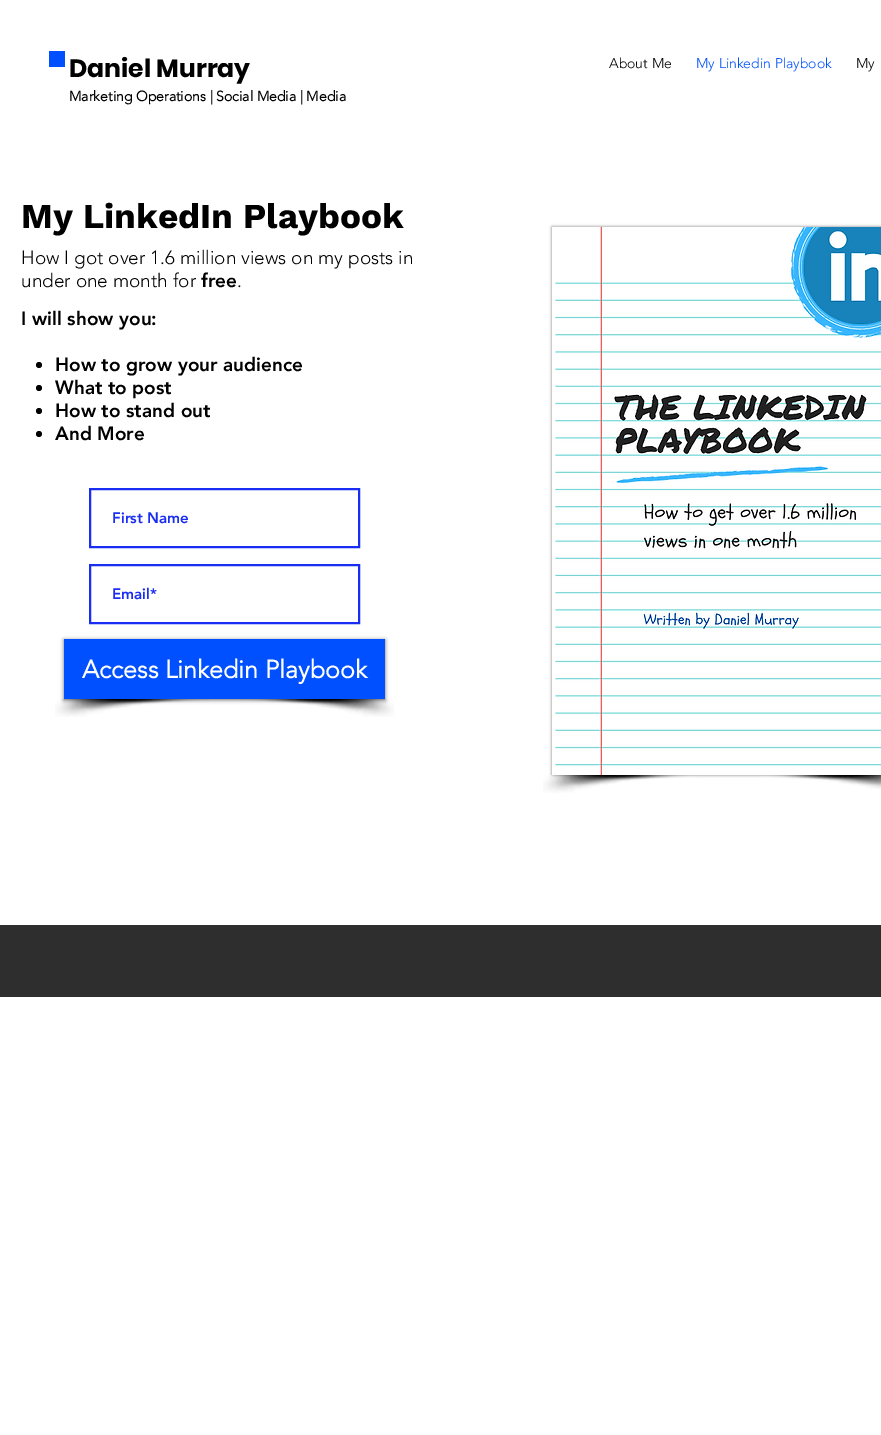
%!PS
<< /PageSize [881 1435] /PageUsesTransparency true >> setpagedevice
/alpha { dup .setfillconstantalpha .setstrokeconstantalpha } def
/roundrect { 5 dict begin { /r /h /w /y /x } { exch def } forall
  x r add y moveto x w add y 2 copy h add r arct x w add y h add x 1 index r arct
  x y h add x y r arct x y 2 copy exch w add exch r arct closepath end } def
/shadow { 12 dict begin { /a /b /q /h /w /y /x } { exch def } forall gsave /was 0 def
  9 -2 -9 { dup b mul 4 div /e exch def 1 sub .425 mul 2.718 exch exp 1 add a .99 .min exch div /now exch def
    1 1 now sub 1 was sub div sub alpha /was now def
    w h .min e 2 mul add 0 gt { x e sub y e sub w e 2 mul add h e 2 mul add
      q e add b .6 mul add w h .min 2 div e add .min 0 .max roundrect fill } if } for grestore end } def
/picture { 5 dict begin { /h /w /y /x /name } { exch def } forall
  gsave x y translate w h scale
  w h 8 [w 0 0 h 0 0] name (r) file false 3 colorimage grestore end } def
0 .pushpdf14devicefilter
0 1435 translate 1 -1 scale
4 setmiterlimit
1 setgray
0 0 881 1435 rectfill
0 0.314 1 setrgbcolor
49 51 16 16 rectfill
/Poppins-Bold [25 0 0 -25 0 0] selectfont
0 setgray
69 77 moveto (Daniel Murray) show
/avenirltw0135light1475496-Bold [14 0 0 -14 0 0] selectfont
69 101 moveto (Marketing Operations | Social Media | Media) show
/avenirltw0135light1475496-Light [14 0 0 -14 0 0] selectfont
609 68 moveto (About Me) show
0 0.314 1 setrgbcolor
696 68 moveto (My Linkedin Playbook) show
0 setgray
856 68 moveto (My) show
/WorkSans-Bold [35 0 0 -35 0 0] selectfont
21 228 moveto (My LinkedIn Playbook) show
552 227 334 548 0 1.5 0.5 shadow
(img1.rgb) 552 227 329 548 picture
(img2.rgb) 543 775 154 18 picture
(img3.rgb) 761 775 120 14 picture
/avenirltw0135light1475496-Light [19 0 0 -19 0 0] selectfont
21 264 moveto (How I got over 1.6 million views on my posts in) show
21 287 moveto (under one month for) show
/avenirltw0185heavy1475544-Black [19 0 0 -19 0 0] selectfont
201 287 moveto (free) show
/avenirltw0135light1475496-Light [19 0 0 -19 0 0] selectfont
237 287 moveto (.) show
/avenirltw0185heavy1475544-Black [19 0 0 -19 0 0] selectfont
21 325 moveto (I will show you:) show
newpath 39 365 3 0 360 arc closepath fill
55 371 moveto (How to grow your audience) show
newpath 39 388 3 0 360 arc closepath fill
55 394 moveto (What to post) show
newpath 39 411 3 0 360 arc closepath fill
55 417 moveto (How to stand out) show
newpath 39 434 3 0 360 arc closepath fill
55 440 moveto (And More) show
0.102 0.176 0.953 setrgbcolor
2 setlinewidth
90 489 269 58 rectstroke
/avenirltw0185heavy1475544-Black [15 0 0 -15 0 0] selectfont
112 523 moveto (First Name) show
90 565 269 58 rectstroke
112 599 moveto (Email*) show
(img4.rgb) 55 699 154 18 picture
(img5.rgb) 240 699 154 18 picture
0 setgray
64 640 321 60 0 2 0.6 shadow
0 0.314 1 setrgbcolor
64 639 321 60 rectfill
/avenirltw0135light1475496-Bold [25 0 0 -25 0 0] selectfont
1 setgray
82 678 moveto (Access Linkedin Playbook) show
0.184 0.18 0.18 setrgbcolor
0 925 881 72 rectfill
.poppdf14devicefilter showpage
